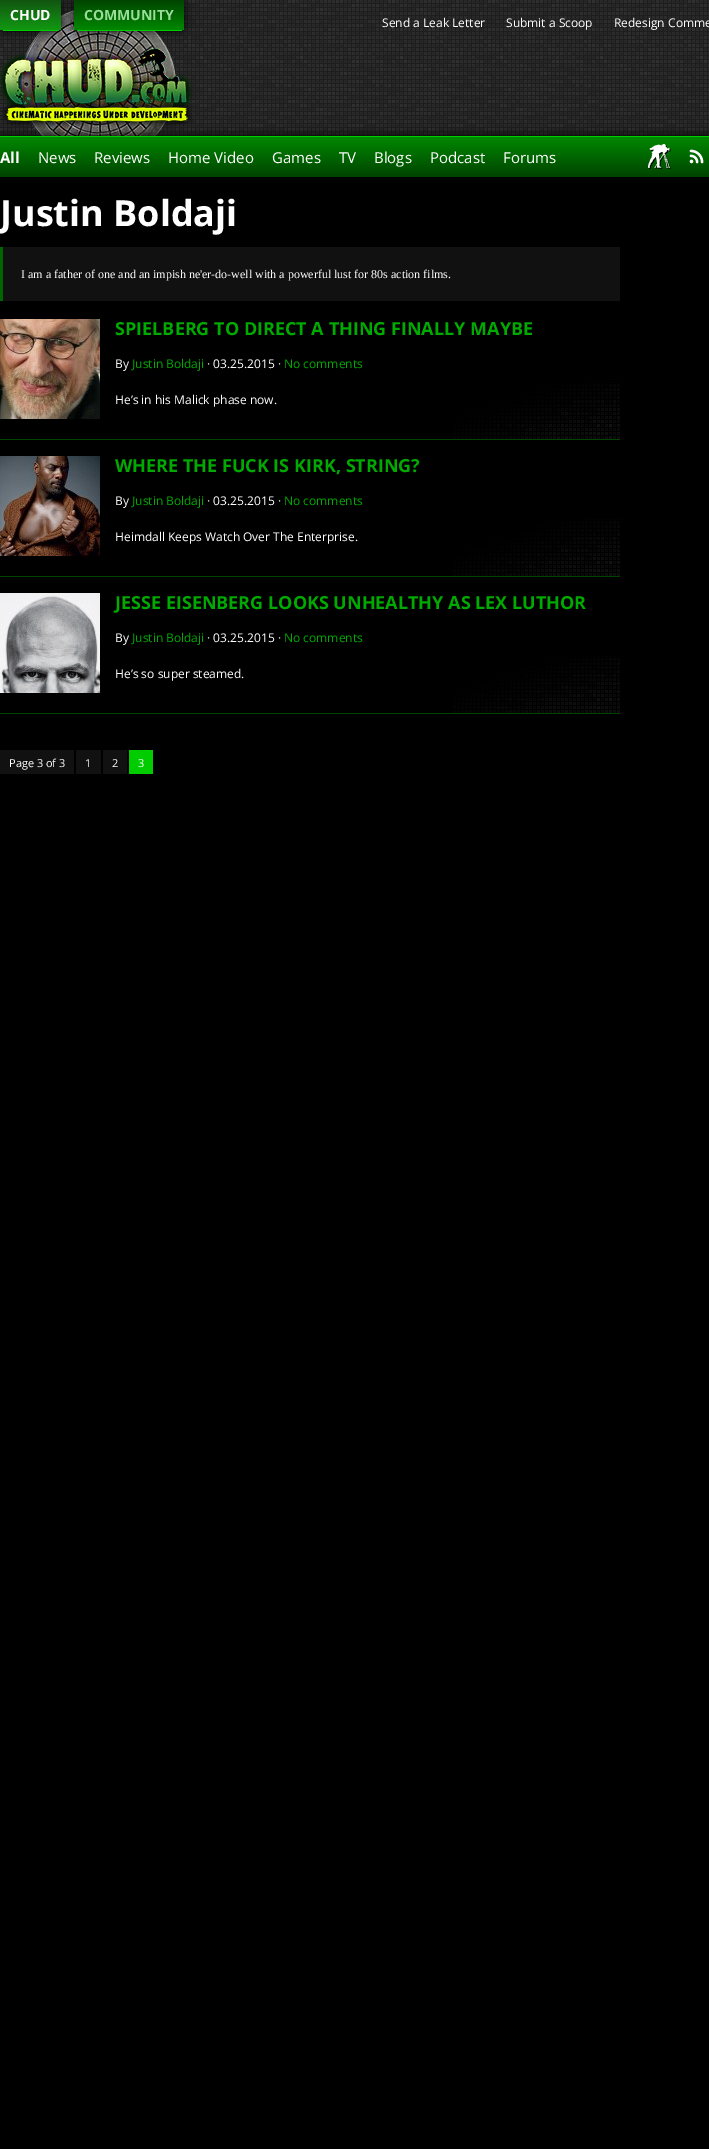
%!PS
<< /PageSize [709 2149] /PageUsesTransparency true >> setpagedevice
/alpha { dup .setfillconstantalpha .setstrokeconstantalpha } def
/roundrect { 5 dict begin { /r /h /w /y /x } { exch def } forall
  x r add y moveto x w add y 2 copy h add r arct x w add y h add x 1 index r arct
  x y h add x y r arct x y 2 copy exch w add exch r arct closepath end } def
/shadow { 12 dict begin { /a /b /q /h /w /y /x } { exch def } forall gsave /was 0 def
  9 -2 -9 { dup b mul 4 div /e exch def 1 sub .425 mul 2.718 exch exp 1 add a .99 .min exch div /now exch def
    1 1 now sub 1 was sub div sub alpha /was now def
    w h .min e 2 mul add 0 gt { x e sub y e sub w e 2 mul add h e 2 mul add
      q e add b .6 mul add w h .min 2 div e add .min 0 .max roundrect fill } if } for grestore end } def
/picture { 5 dict begin { /h /w /y /x /name } { exch def } forall
  gsave x y translate w h scale
  w h 8 [w 0 0 h 0 0] name (r) file false 3 colorimage grestore end } def
0 .pushpdf14devicefilter
0 2149 translate 1 -1 scale
4 setmiterlimit
0 setgray
0 0 709 2149 rectfill
0.118 setgray
0 135 709 1 rectfill
(img1.rgb) 0 0 709 135 picture
(img2.rgb) 0 10 193 126 picture
0 setgray
0 0 61 31 5 5 1 shadow
gsave
newpath 0 0 moveto 61 0 lineto 61 26 lineto 61 29 59 31 56 31 curveto 5 31 lineto 2 31 0 29 0 26 curveto closepath clip newpath
gsave newpath 0 0 moveto 61 0 lineto 61 30 lineto 0 30 lineto closepath clip newpath
<< /ShadingType 2 /ColorSpace /DeviceRGB /Coords [0 30 0 0] /Extend [true true] /Function << /FunctionType 2 /Domain [0 1] /C0 [0.067 0.6 0.067] /C1 [0.067 0.333 0.067] /N 1 >> >> shfill grestore
grestore
0 0.8 0 setrgbcolor
3 30 56 1 rectfill
/OpenSans-Bold [14 0 0 -14 0 0] selectfont
1 setgray
10 20 moveto (CHUD) show
0 setgray
74 0 110 31 5 5 1 shadow
gsave
newpath 74 0 moveto 184 0 lineto 184 26 lineto 184 29 182 31 179 31 curveto 79 31 lineto 76 31 74 29 74 26 curveto closepath clip newpath
gsave newpath 74 0 moveto 184 0 lineto 184 30 lineto 74 30 lineto closepath clip newpath
<< /ShadingType 2 /ColorSpace /DeviceRGB /Coords [74 30 74 0] /Extend [true true] /Function << /FunctionType 2 /Domain [0 1] /C0 [0 0.533 0] /C1 [0 0.267 0] /N 1 >> >> shfill grestore
grestore
0 0.8 0 setrgbcolor
77 30 105 1 rectfill
0.6 0.867 0.6 setrgbcolor
84 20 moveto (COMMUNITY) show
/OpenSans-Regular [12 0 0 -12 0 0] selectfont
1 setgray
382 27 moveto (Send a Leak Letter) show
506 27 moveto (Submit a Scoop) show
614 27 moveto (Redesign Comme) show
0 setgray
0 136 709 41 0 5 1 shadow
gsave newpath 0 137 moveto 709 137 lineto 709 177 lineto 0 177 lineto closepath clip newpath
<< /ShadingType 2 /ColorSpace /DeviceRGB /Coords [0 177 0 137] /Extend [true true] /Function << /FunctionType 2 /Domain [0 1] /C0 [0 0.267 0] /C1 [0 0.533 0] /N 1 >> >> shfill grestore
0 0.8 0 setrgbcolor
0 136 709 1 rectfill
/OpenSans-Bold [15 0 0 -15 0 0] selectfont
1 setgray
0 163 moveto (All) show
/OpenSans-Regular [15 0 0 -15 0 0] selectfont
38 163 moveto (News) show
94 163 moveto (Reviews) show
168 163 moveto (Home Video) show
272 163 moveto (Games) show
339 163 moveto (TV) show
374 163 moveto (Blogs) show
430 163 moveto (Podcast) show
503 163 moveto (Forums) show
(img3.rgb) 648 144 23 25 picture
(img4.rgb) 689 149 15 15 picture
/OpenSans-Bold [36 0 0 -36 0 0] selectfont
0 226 moveto (Justin Boldaji) show
0.067 setgray
3 247 617 54 rectfill
0 0.4 0 setrgbcolor
0 247 3 54 rectfill
/LiberationSerif-Regular [12 0 0 -12 0 0] selectfont
1 setgray
21 278 moveto (I am a father of one and an impish ne'er-do-well with a powerful lust for 80s action films.) show
(img5.rgb) 453 382 167 57 picture
0 0.267 0 setrgbcolor
0 439 620 1 rectfill
(img6.rgb) 0 319 100 100 picture
/OpenSans-Bold [18 0 0 -18 0 0] selectfont
0 0.667 0 setrgbcolor
115 335 moveto (SPIELBERG TO DIRECT A THING FINALLY MAYBE) show
/OpenSans-Regular [12 0 0 -12 0 0] selectfont
1 setgray
115 368 moveto (By) show
0 0.667 0 setrgbcolor
132 368 moveto (Justin Boldaji) show
1 setgray
207 368 moveto (· 03.25.2015 ·) show
0 0.667 0 setrgbcolor
284 368 moveto (No comments) show
1 setgray
115 404 moveto (He’s in his Malick phase now.) show
(img5.rgb) 453 519 167 57 picture
0 0.267 0 setrgbcolor
0 576 620 1 rectfill
(img7.rgb) 0 456 100 100 picture
/OpenSans-Bold [18 0 0 -18 0 0] selectfont
0 0.667 0 setrgbcolor
115 472 moveto (WHERE THE FUCK IS KIRK, STRING?) show
/OpenSans-Regular [12 0 0 -12 0 0] selectfont
1 setgray
115 505 moveto (By) show
0 0.667 0 setrgbcolor
132 505 moveto (Justin Boldaji) show
1 setgray
207 505 moveto (· 03.25.2015 ·) show
0 0.667 0 setrgbcolor
284 505 moveto (No comments) show
1 setgray
115 541 moveto (Heimdall Keeps Watch Over The Enterprise.) show
(img5.rgb) 453 656 167 57 picture
0 0.267 0 setrgbcolor
0 713 620 1 rectfill
(img8.rgb) 0 593 100 100 picture
/OpenSans-Bold [18 0 0 -18 0 0] selectfont
0 0.667 0 setrgbcolor
115 609 moveto (JESSE EISENBERG LOOKS UNHEALTHY AS LEX LUTHOR) show
/OpenSans-Regular [12 0 0 -12 0 0] selectfont
1 setgray
115 642 moveto (By) show
0 0.667 0 setrgbcolor
132 642 moveto (Justin Boldaji) show
1 setgray
207 642 moveto (· 03.25.2015 ·) show
0 0.667 0 setrgbcolor
284 642 moveto (No comments) show
1 setgray
115 678 moveto (He’s so super steamed.) show
0.067 setgray
0 750 74 24 rectfill
/OpenSans-Regular [11 0 0 -11 0 0] selectfont
1 setgray
9 767 moveto (Page 3 of 3) show
0.067 setgray
76 750 25 24 rectfill
1 setgray
85 767 moveto (1) show
0.067 setgray
103 750 24 24 rectfill
1 setgray
112 767 moveto (2) show
0 0.8 0 setrgbcolor
129 750 24 24 rectfill
1 setgray
138 767 moveto (3) show
.poppdf14devicefilter showpage
